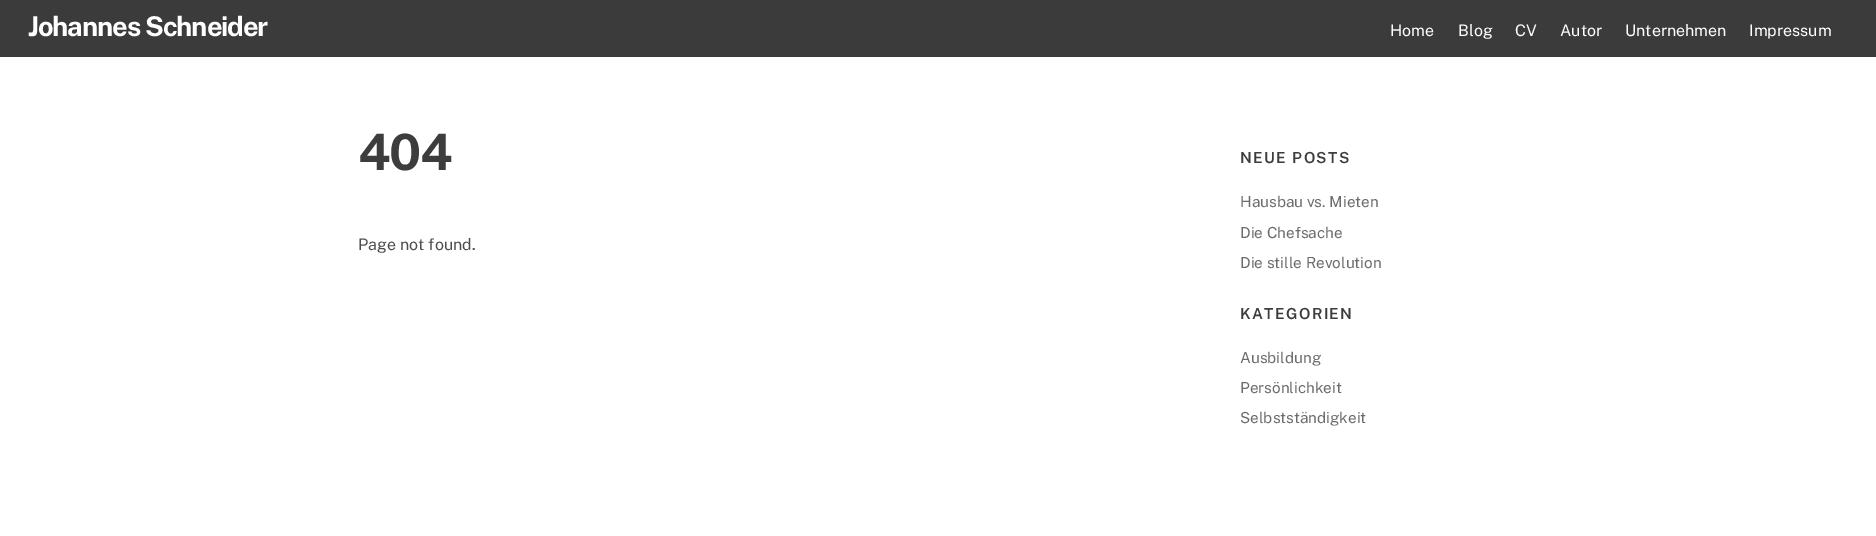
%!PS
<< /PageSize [1876 536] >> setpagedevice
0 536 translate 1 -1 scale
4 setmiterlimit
1 setgray
0 0 1876 536 rectfill
0.231 setgray
0 0 1876 56 rectfill
0.22 setgray
0 56 1876 1 rectfill
/PublicSans-Bold [27.25 0 0 -27.25 0 0] selectfont
1 setgray
28 36 moveto -1.1 0 (Johannes Schneider) ashow
/PublicSans-Regular [16 0 0 -16 0 0] selectfont
1390 36 moveto (Home) show
1458 36 moveto (Blog) show
1515 36 moveto (CV) show
1560 36 moveto (Autor) show
1625 36 moveto (Unternehmen) show
1749 36 moveto (Impressum) show
/PublicSans-Bold [50 0 0 -50 0 0] selectfont
0.239 setgray
358 170 moveto -1.5 0 (404) ashow
/PublicSans-Regular [16 0 0 -16 0 0] selectfont
0.302 setgray
358 250 moveto (Page not found.) show
/PublicSans-SemiBold [15.25 0 0 -15.25 0 0] selectfont
0.239 setgray
1240 163 moveto 1.4 0 (NEUE POSTS) ashow
/PublicSans-Regular [15.25 0 0 -15.25 0 0] selectfont
0.424 setgray
1240 207 moveto (Hausbau vs. Mieten) show
1240 238 moveto (Die Chefsache) show
1240 268 moveto (Die stille Revolution) show
/PublicSans-SemiBold [15.25 0 0 -15.25 0 0] selectfont
0.239 setgray
1240 319 moveto 1.4 0 (KATEGORIEN) ashow
/PublicSans-Regular [15.25 0 0 -15.25 0 0] selectfont
0.424 setgray
1240 363 moveto (Ausbildung) show
1240 393 moveto (Persönlichkeit) show
1240 423 moveto (Selbstständigkeit) show
showpage
